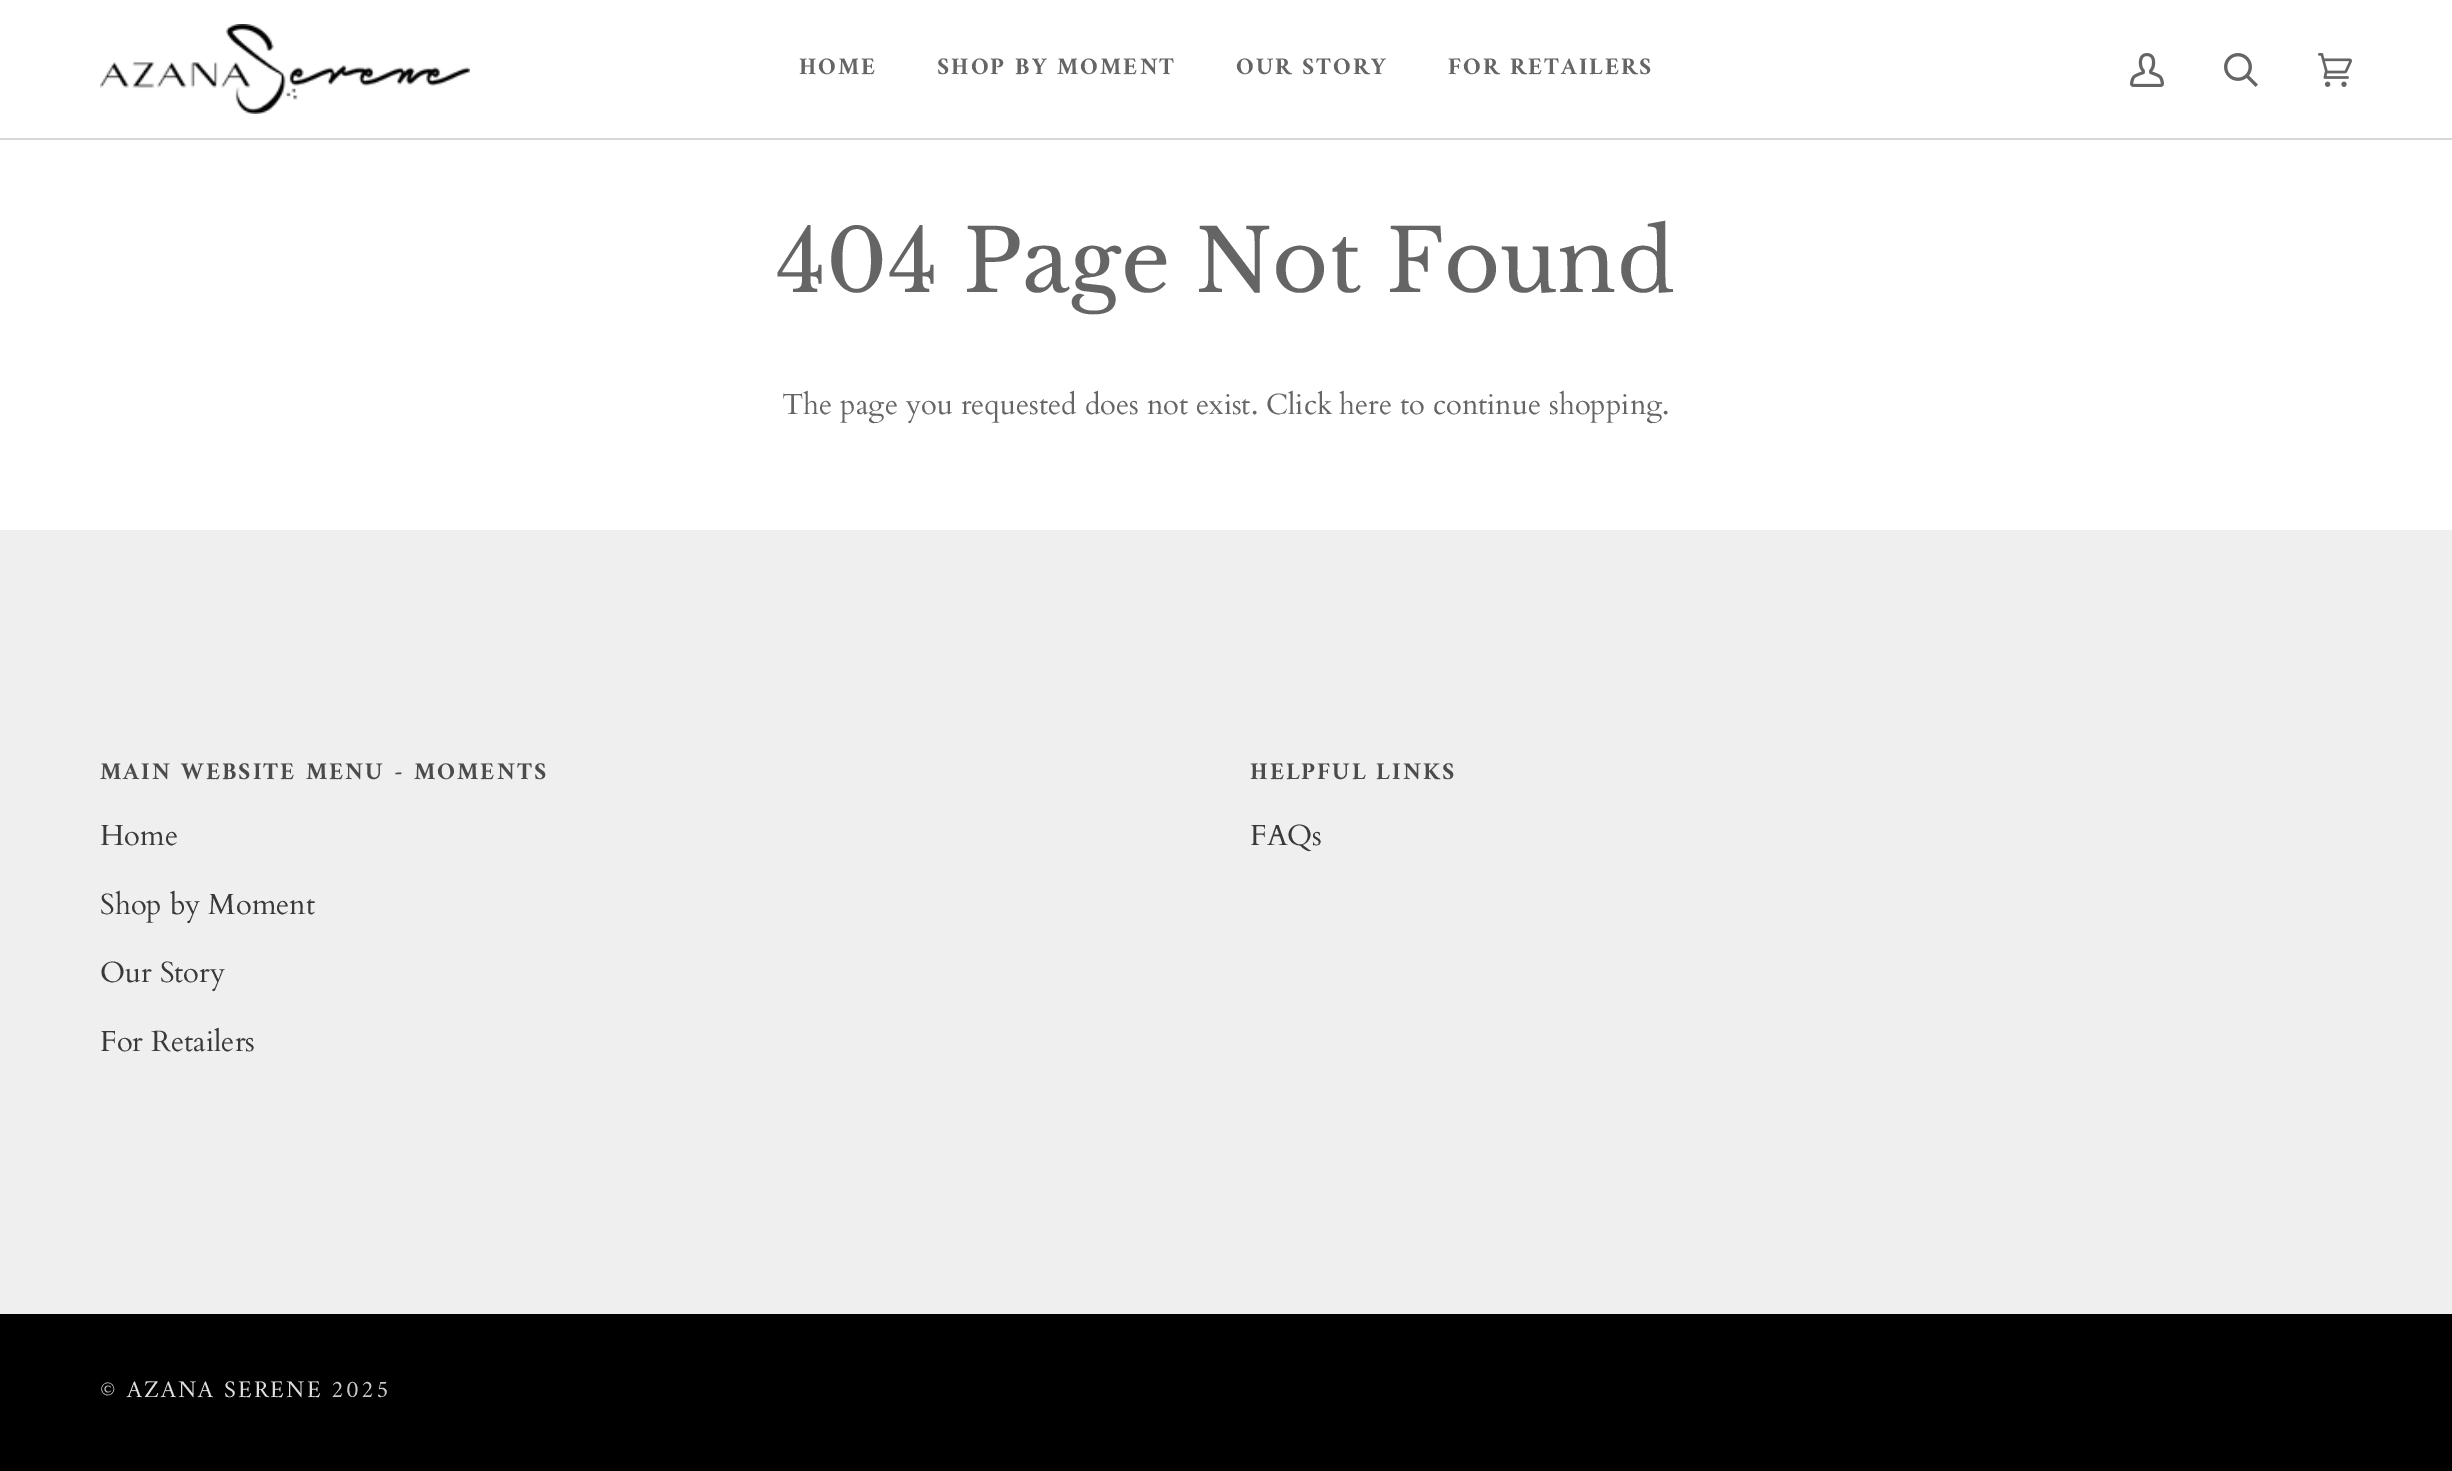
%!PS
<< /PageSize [2452 1471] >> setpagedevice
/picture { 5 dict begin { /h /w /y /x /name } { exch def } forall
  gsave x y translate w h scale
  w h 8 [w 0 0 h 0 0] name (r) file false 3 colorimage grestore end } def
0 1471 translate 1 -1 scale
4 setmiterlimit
1 setgray
0 0 2452 1471 rectfill
0.843 setgray
0 138 2452 2 rectfill
(img1.rgb) 100 24 370 90 picture
/Amiri-Bold [24 0 0 -24 0 0] selectfont
0.396 setgray
799 74 moveto 2 0 (HOME) ashow
937 74 moveto 2 0 (SHOP BY MOMENT) ashow
1236 74 moveto 2 0 (OUR STORY) ashow
1448 74 moveto 2 0 (FOR RETAILERS) ashow
(img2.rgb) 2130 53 34 34 picture
(img3.rgb) 2224 53 34 34 picture
(img4.rgb) 2318 53 34 34 picture
/LibreBaskerville-Regular [86 0 0 -86 0 0] selectfont
776 292 moveto (404 Page Not Found) show
/Cardo-Regular [29.1 0 0 -29.1 0 0] selectfont
782 414 moveto (The page you requested does not exist. Click) show
1339 414 moveto (here to continue shopping.) show
0.937 setgray
0 530 2452 784 rectfill
/Amiri-Bold [24.25 0 0 -24.25 0 0] selectfont
0.294 setgray
100 779 moveto 2 0 (MAIN WEBSITE MENU - MOMENTS) ashow
/Cardo-Regular [29.1 0 0 -29.1 0 0] selectfont
0.224 setgray
100 845 moveto (Home) show
100 914 moveto (Shop by Moment) show
100 982 moveto (Our Story) show
100 1051 moveto (For Retailers) show
/Amiri-Bold [24.25 0 0 -24.25 0 0] selectfont
0.294 setgray
1250 779 moveto 2 0 (HELPFUL LINKS) ashow
/Cardo-Regular [29.1 0 0 -29.1 0 0] selectfont
0.224 setgray
1250 845 moveto (FAQs) show
0 setgray
0 1314 2452 157 rectfill
/Amiri-Regular [24.25 0 0 -24.25 0 0] selectfont
0.788 setgray
100 1397 moveto 2 0 (©) ashow
0.875 setgray
127 1397 moveto 2 0 (AZANA SERENE) ashow
0.788 setgray
331 1397 moveto 2 0 (2025) ashow
showpage
